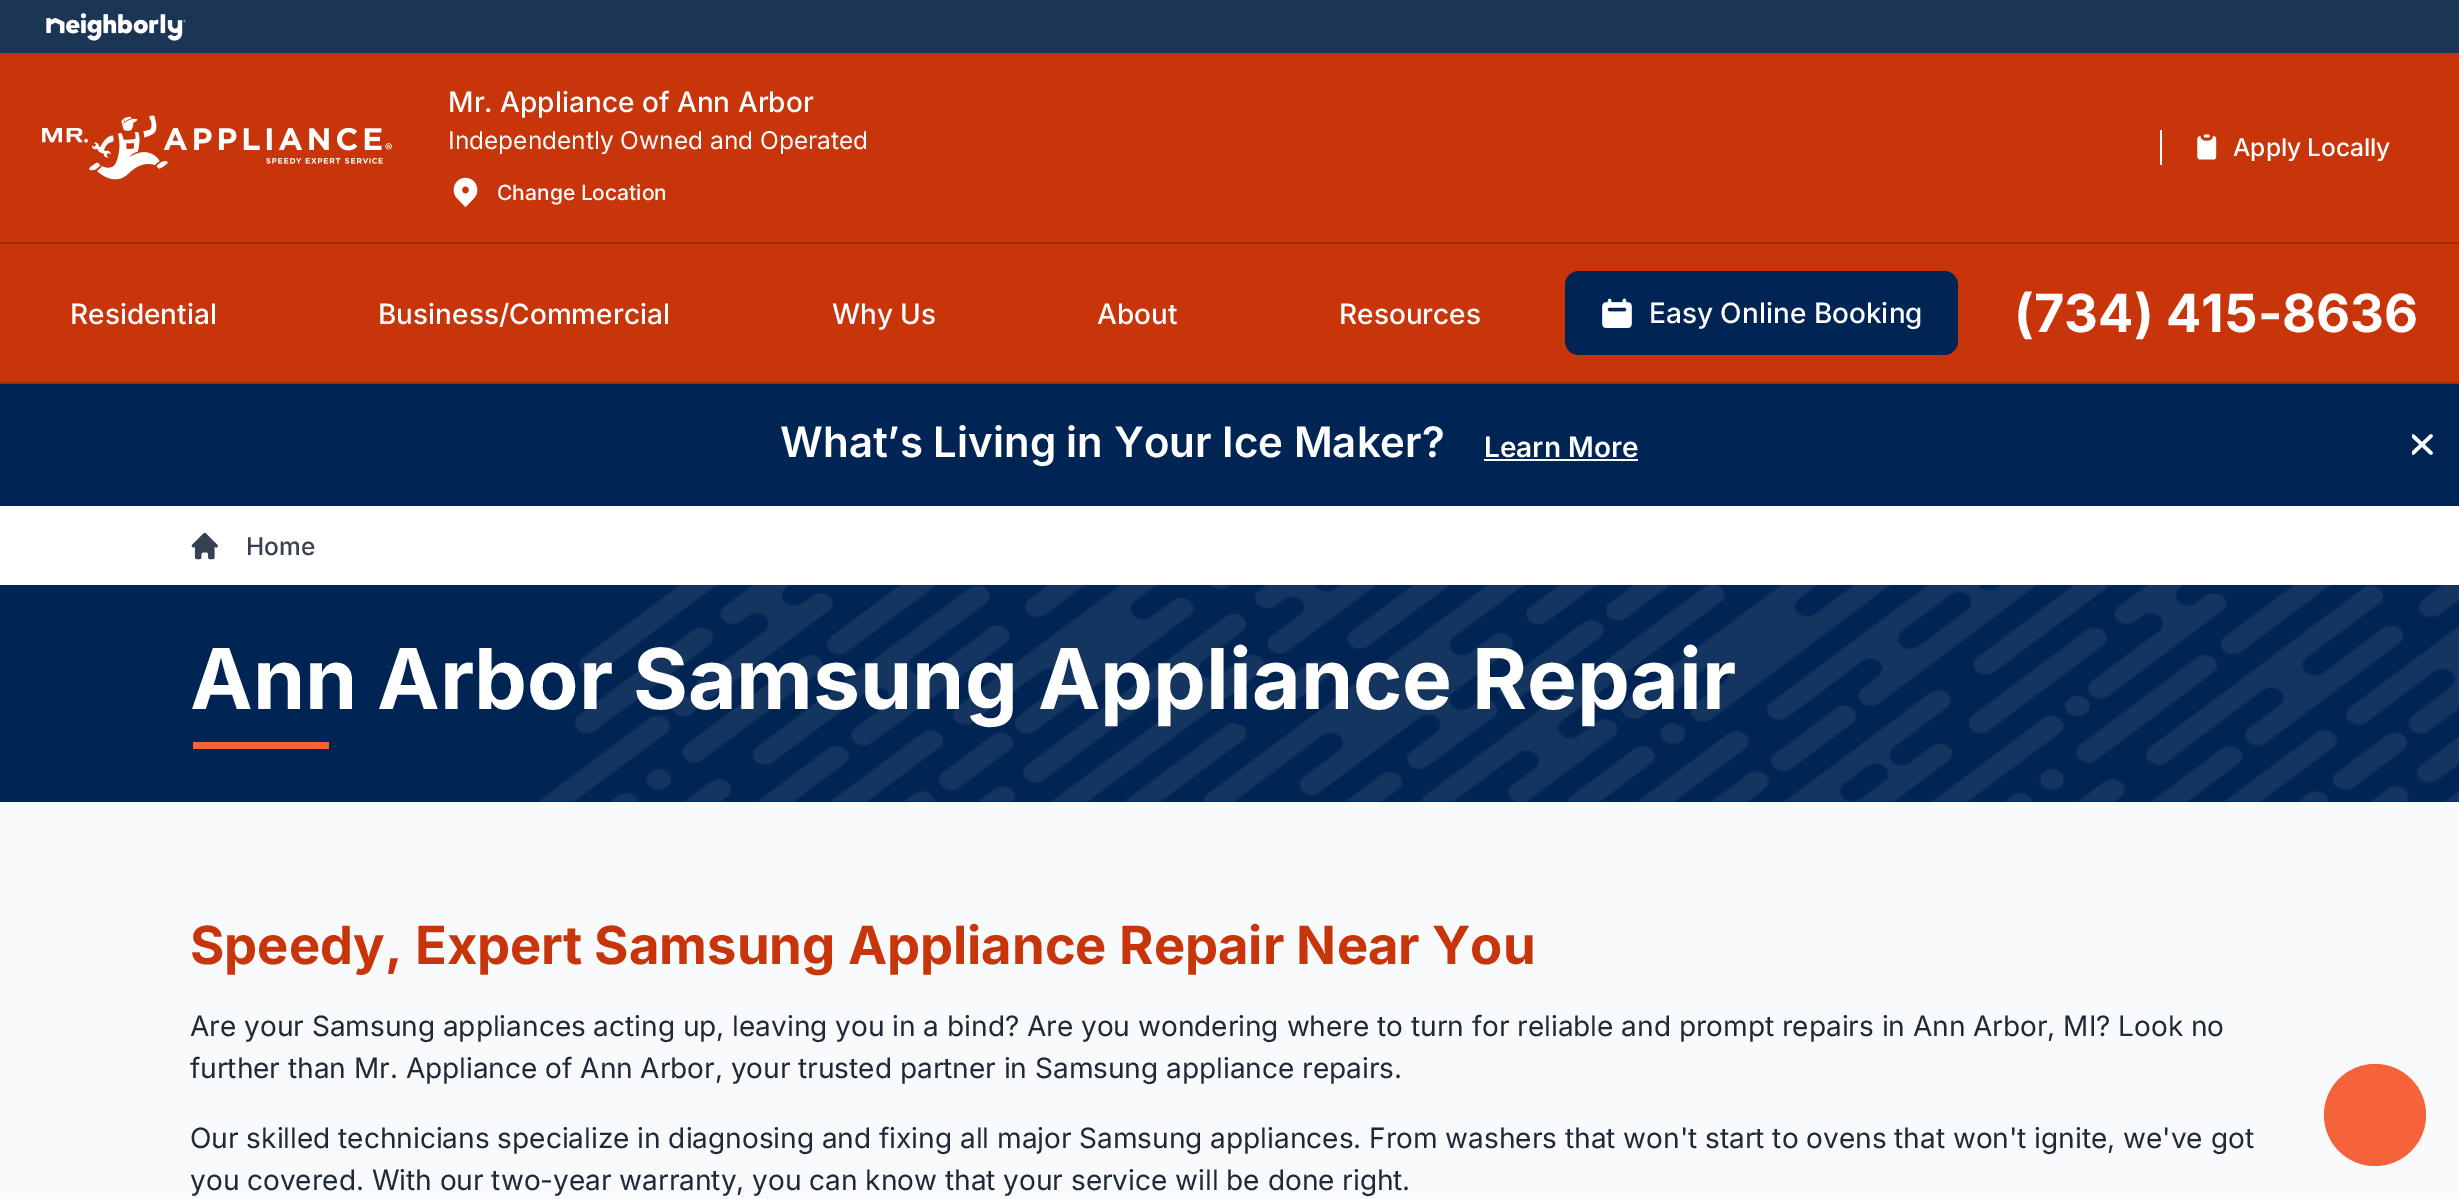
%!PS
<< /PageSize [2459 1199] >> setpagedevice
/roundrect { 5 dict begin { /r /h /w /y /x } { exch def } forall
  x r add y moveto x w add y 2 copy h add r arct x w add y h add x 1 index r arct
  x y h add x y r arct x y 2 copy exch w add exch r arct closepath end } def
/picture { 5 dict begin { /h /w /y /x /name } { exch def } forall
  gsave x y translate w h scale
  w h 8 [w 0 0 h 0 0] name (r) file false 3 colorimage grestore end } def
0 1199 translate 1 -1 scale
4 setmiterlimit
1 setgray
0 0 2459 1199 rectfill
0.106 0.208 0.329 setrgbcolor
0 0 2459 53 rectfill
(img1.rgb) 46 13 140 28 picture
0.784 0.208 0.043 setrgbcolor
0 53 2459 189 rectfill
(img2.rgb) 42 115 350 65 picture
/Inter-Medium [28 0 0 -28 0 0] selectfont
1 setgray
448 112 moveto (Mr. Appliance of Ann Arbor) show
/Inter-Regular [24.5 0 0 -24.5 0 0] selectfont
448 149 moveto (Independently Owned and Operated) show
(img3.rgb) 453 177 25 31 picture
/Inter-Medium [21 0 0 -21 0 0] selectfont
497 200 moveto (Change Location) show
2160 130 2 35 rectfill
(img4.rgb) 2197 134 20 26 picture
/Inter-Medium [24.5 0 0 -24.5 0 0] selectfont
2233 156 moveto (Apply Locally) show
0.784 0.208 0.043 setrgbcolor
0 244 2459 138 rectfill
0.616 0.165 0.035 setrgbcolor
0 242 2459 2 rectfill
0 382 2459 2 rectfill
/Inter-Medium [28 0 0 -28 0 0] selectfont
1 setgray
70 324 moveto (Residential) show
378 324 moveto (Business/Commercial) show
832 324 moveto (Why Us) show
1097 324 moveto (About) show
1339 324 moveto (Resources) show
0 0.145 0.329 setrgbcolor
1565 271 393 84 14 roundrect fill
(img5.rgb) 1602 298 30 30 picture
1 setgray
1649 323 moveto (Easy Online Booking) show
/Inter-Bold [52.5 0 0 -52.5 0 0] selectfont
2014 332 moveto (\(734\) 415-8636) show
0 0.145 0.329 setrgbcolor
0 384 2459 122 rectfill
/Inter-SemiBold [42 0 0 -42 0 0] selectfont
1 setgray
780 457 moveto (What’s Living in Your Ice Maker?) show
/Inter-SemiBold [28 0 0 -28 0 0] selectfont
1484 457 moveto (Learn More) show
1484 459 154 2 rectfill
gsave
2412 434 21 21 rectclip
3.5 setlinewidth
1 setlinecap
1 setlinejoin
newpath 2413 436 moveto 2431 453 lineto 2413 453 moveto 2431 436 lineto closepath stroke
grestore
(img6.rgb) 191 532 27 28 picture
/Inter-Medium [24.5 0 0 -24.5 0 0] selectfont
0.216 0.255 0.318 setrgbcolor
246 555 moveto (Home) show
0 0.145 0.329 setrgbcolor
0 585 2459 217 rectfill
(img7.rgb) 539 585 1920 217 picture
/Inter-Bold [84 0 0 -84 0 0] selectfont
1 setgray
190 709 moveto (Ann Arbor Samsung Appliance Repair) show
0.957 0.388 0.227 setrgbcolor
193 742 136 7 rectfill
0.976 0.98 0.984 setrgbcolor
0 802 2459 397 rectfill
/Inter-Bold [52.5 0 0 -52.5 0 0] selectfont
0.784 0.208 0.043 setrgbcolor
190 964 moveto (Speedy, Expert Samsung Appliance Repair Near You) show
/Inter-Regular [28 0 0 -28 0 0] selectfont
0.122 0.161 0.216 setrgbcolor
190 1036 moveto (Are your Samsung appliances acting up, leaving you in a bind? Are you wondering where to turn for reliable and prompt repairs in Ann Arbor, MI? Look no) show
190 1078 moveto (further than Mr. Appliance of Ann Arbor, your trusted partner in Samsung appliance repairs.) show
190 1148 moveto (Our skilled technicians specialize in diagnosing and fixing all major Samsung appliances. From washers that won't start to ovens that won't ignite, we've got) show
190 1190 moveto (you covered. With our two-year warranty, you can know that your service will be done right.) show
0.957 0.388 0.227 setrgbcolor
newpath 2375 1115 51 0 360 arc closepath fill
showpage
